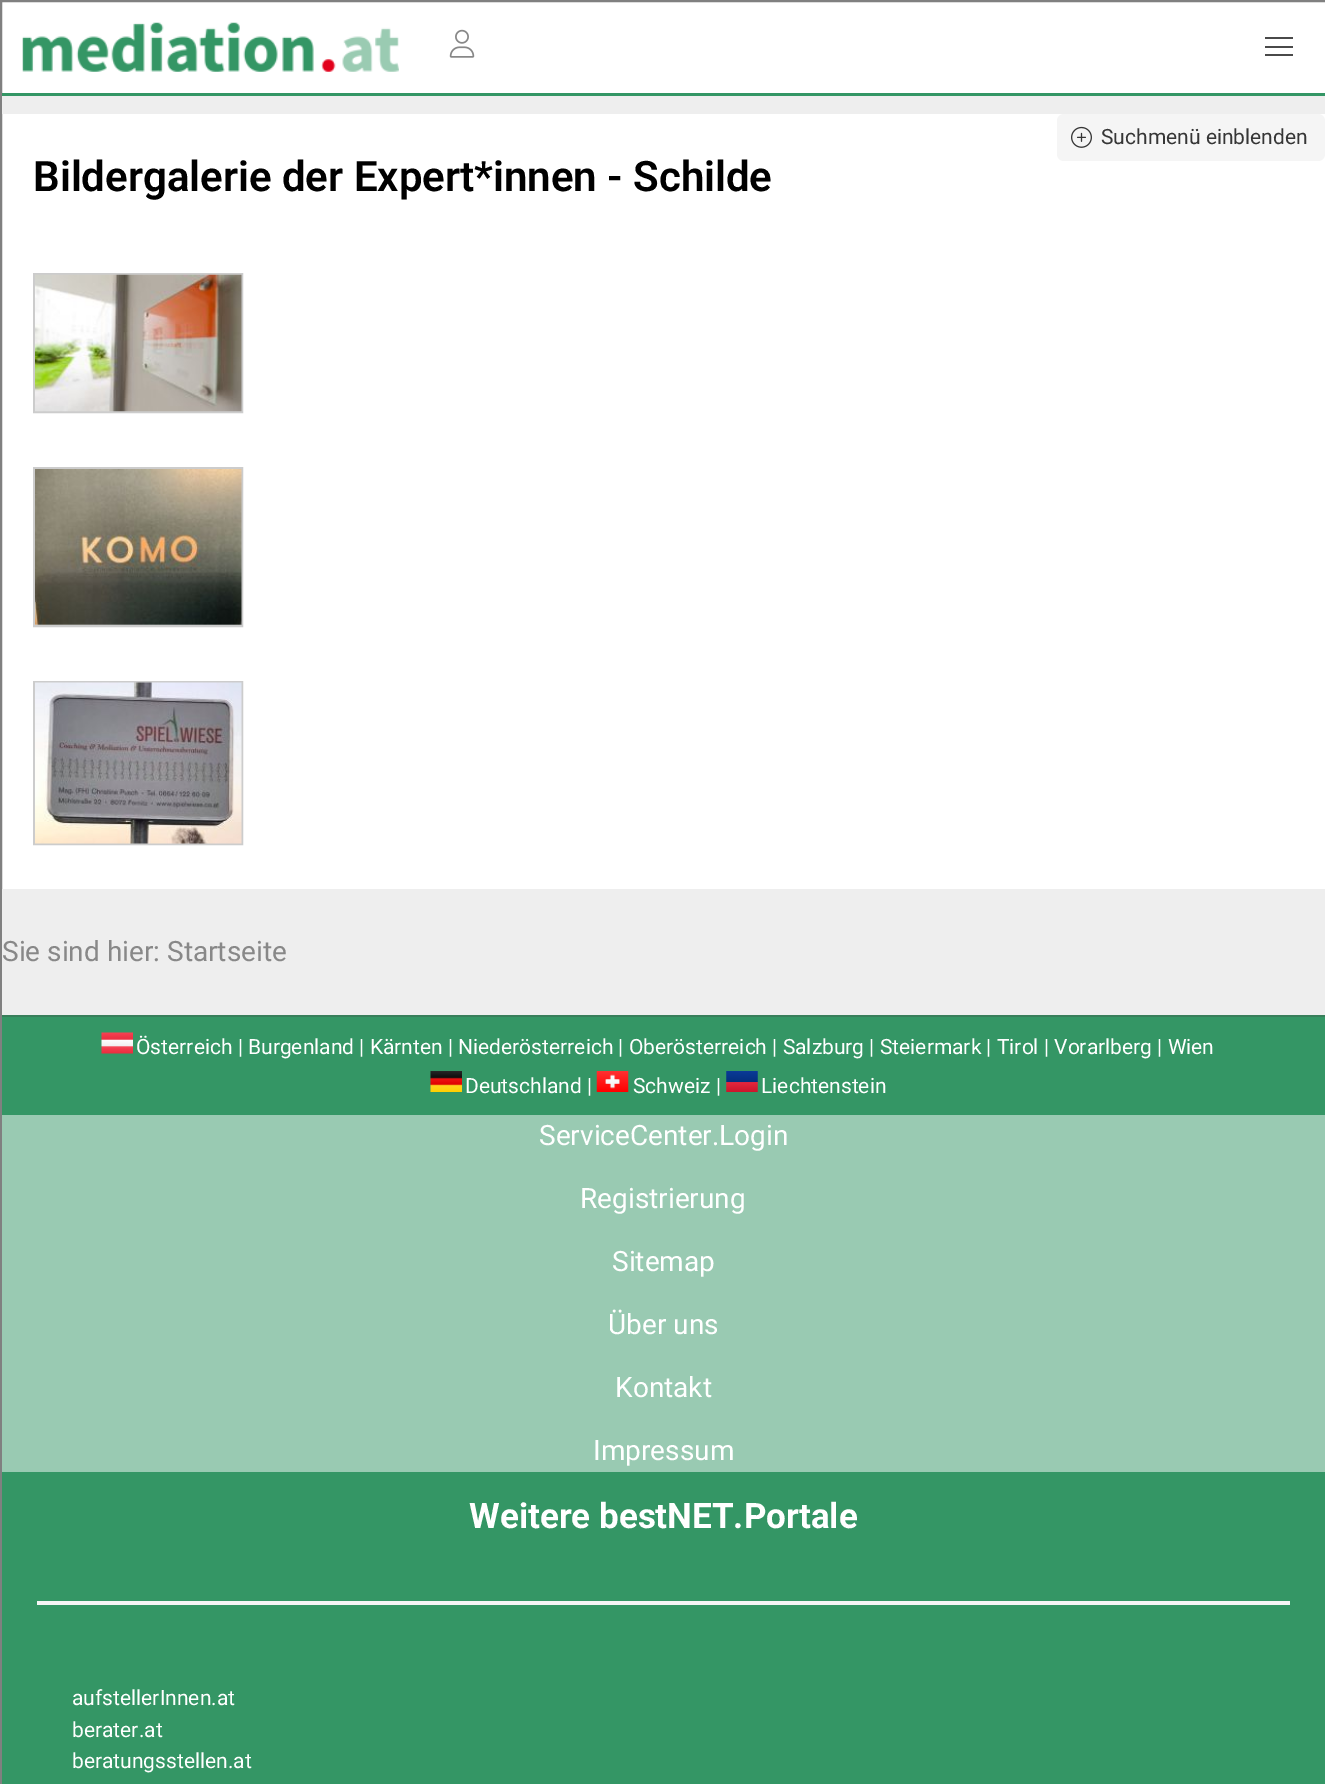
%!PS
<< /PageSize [1325 1784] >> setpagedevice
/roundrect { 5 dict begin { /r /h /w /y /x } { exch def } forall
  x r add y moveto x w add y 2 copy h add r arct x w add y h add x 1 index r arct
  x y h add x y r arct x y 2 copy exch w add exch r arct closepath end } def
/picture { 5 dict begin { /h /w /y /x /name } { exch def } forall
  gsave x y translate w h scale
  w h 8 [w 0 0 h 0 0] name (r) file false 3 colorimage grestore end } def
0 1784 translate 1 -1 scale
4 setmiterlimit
1 setgray
0 0 1325 1784 rectfill
0.502 setgray
2 setlinewidth
1 1 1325 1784 rectstroke
(img1.rgb) 22 22 377 50 picture
(img2.rgb) 449 29 26 29 picture
0.29 setgray
1265 37 28 2 rectfill
1265 46 28 2 rectfill
1265 54 28 2 rectfill
0.204 0.588 0.396 setrgbcolor
2 93 1323 3 rectfill
0.933 setgray
2 96 1323 18 rectfill
2 889 1323 126 rectfill
0.961 setgray
1057 114 268 47 7 roundrect fill
(img3.rgb) 1071 126 21 22 picture
/Roboto-Regular [21 0 0 -21 0 0] selectfont
0.212 setgray
1101 144 moveto (Suchmenü einblenden) show
/Roboto-SemiBold [42 0 0 -42 0 0] selectfont
0 setgray
33 191 moveto (Bildergalerie der Expert*innen - Schilde) show
0.8 setgray
34 274 208 138 rectstroke
(img4.rgb) 35 274 207 138 picture
34 468 208 158 rectstroke
(img5.rgb) 35 469 207 156 picture
34 682 208 162 rectstroke
(img6.rgb) 35 682 207 162 picture
/Roboto-Regular [28 0 0 -28 0 0] selectfont
0.533 setgray
2 961 moveto (Sie sind hier: Startseite) show
0.204 0.588 0.396 setrgbcolor
2 1017 1323 98 rectfill
0.22 0.494 0.353 setrgbcolor
2 1015 1323 2 rectfill
(img7.rgb) 101 1032 32 22 picture
/Roboto-Regular [21 0 0 -21 0 0] selectfont
1 setgray
136 1054 moveto (Österreich | Burgenland | Kärnten | Niederösterreich | Oberösterreich | Salzburg | Steiermark | Tirol | Vorarlberg | Wien) show
(img8.rgb) 430 1071 32 21 picture
465 1093 moveto (Deutschland |) show
(img9.rgb) 596 1071 33 21 picture
633 1093 moveto (Schweiz |) show
(img10.rgb) 726 1071 32 21 picture
761 1093 moveto (Liechtenstein) show
0.6 0.792 0.698 setrgbcolor
2 1115 1323 357 rectfill
/Roboto-Regular [28 0 0 -28 0 0] selectfont
1 setgray
539 1145 moveto (ServiceCenter.Login) show
580 1208 moveto (Registrierung) show
612 1271 moveto (Sitemap) show
608 1334 moveto (Über uns) show
615 1397 moveto (Kontakt) show
593 1460 moveto (Impressum) show
0.204 0.588 0.396 setrgbcolor
2 1472 1323 312 rectfill
/Roboto-Bold [35 0 0 -35 0 0] selectfont
1 setgray
469 1528 moveto (Weitere bestNET.Portale) show
0.961 setgray
37 1601 1253 4 rectfill
/Roboto-Regular [21 0 0 -21 0 0] selectfont
1 setgray
72 1705 moveto (aufstellerInnen.at) show
72 1737 moveto (berater.at) show
72 1768 moveto (beratungsstellen.at) show
showpage
